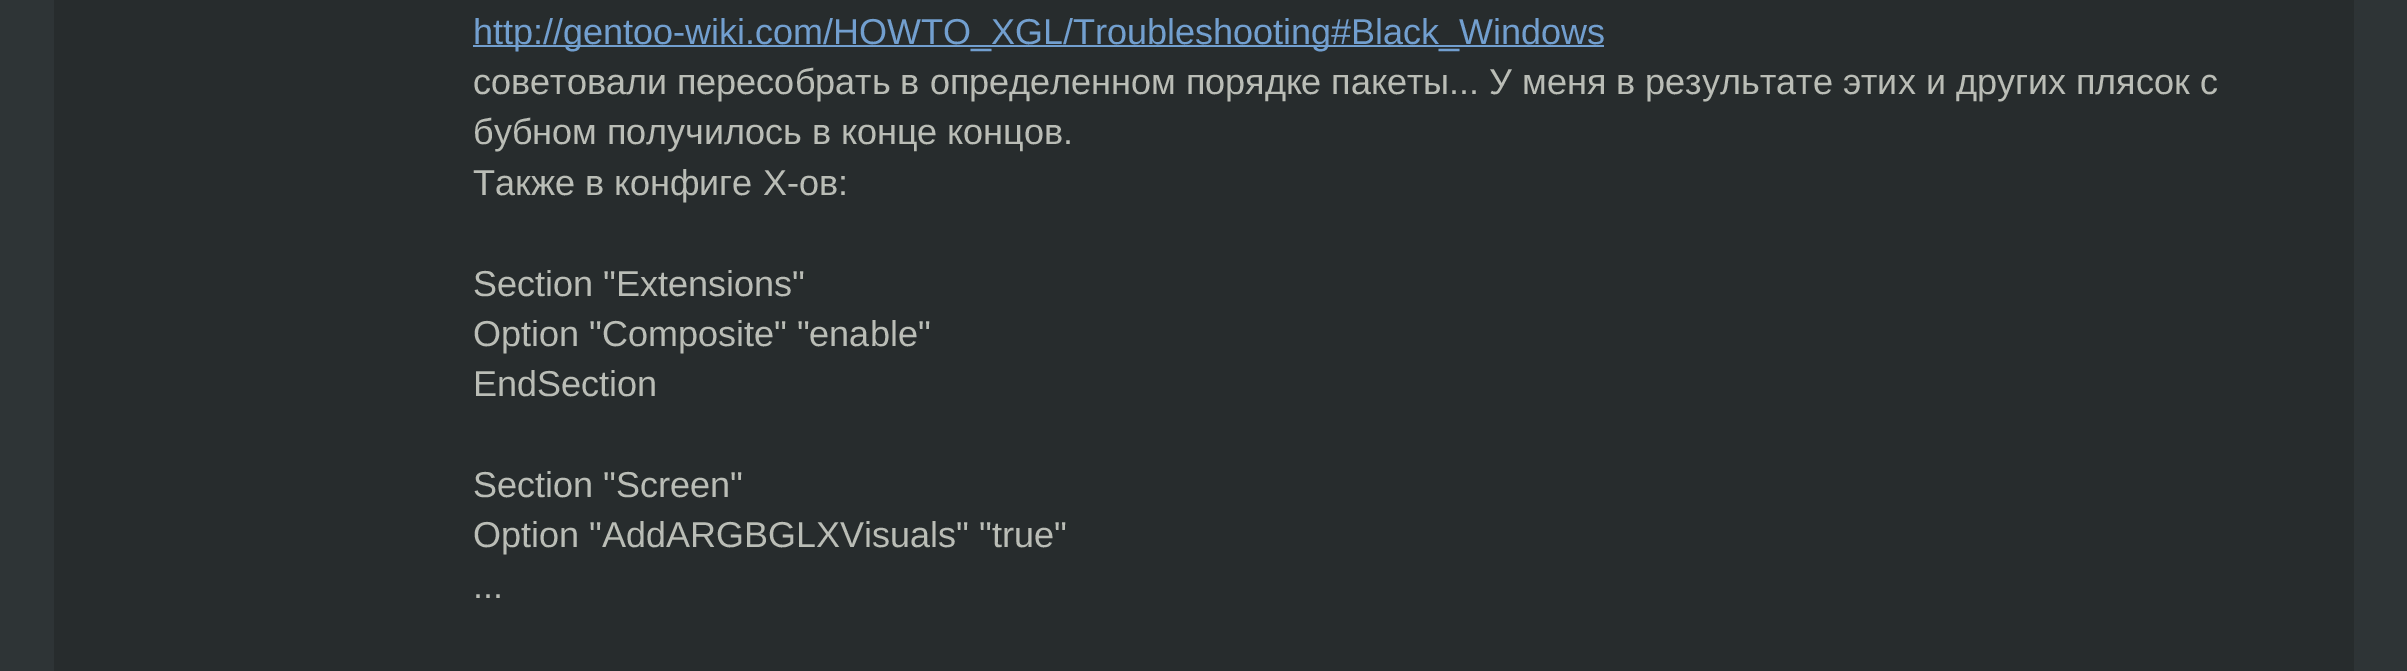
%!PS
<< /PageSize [2407 671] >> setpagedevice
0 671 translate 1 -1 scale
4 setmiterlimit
0.18 0.204 0.212 setrgbcolor
0 0 2407 671 rectfill
0.153 0.173 0.176 setrgbcolor
54 0 2300 671 rectfill
0.447 0.624 0.812 setrgbcolor
473 45 1131 2 rectfill
/LiberationSans-Regular [36 0 0 -36 0 0] selectfont
473 44 moveto (http://gentoo-wiki.com/HOWTO_XGL/Troubleshooting#Black_Windows) show
0.729 0.741 0.714 setrgbcolor
473 94 moveto (советовали пересобрать в определенном порядке пакеты... У меня в результате этих и других плясок с) show
473 144 moveto (бубном получилось в конце концов.) show
473 195 moveto (Также в конфиге X-ов:) show
473 296 moveto (Section "Extensions") show
473 346 moveto (Option "Composite" "enable") show
473 396 moveto (EndSection) show
473 497 moveto (Section "Screen") show
473 547 moveto (Option "AddARGBGLXVisuals" "true") show
473 598 moveto (...) show
showpage
